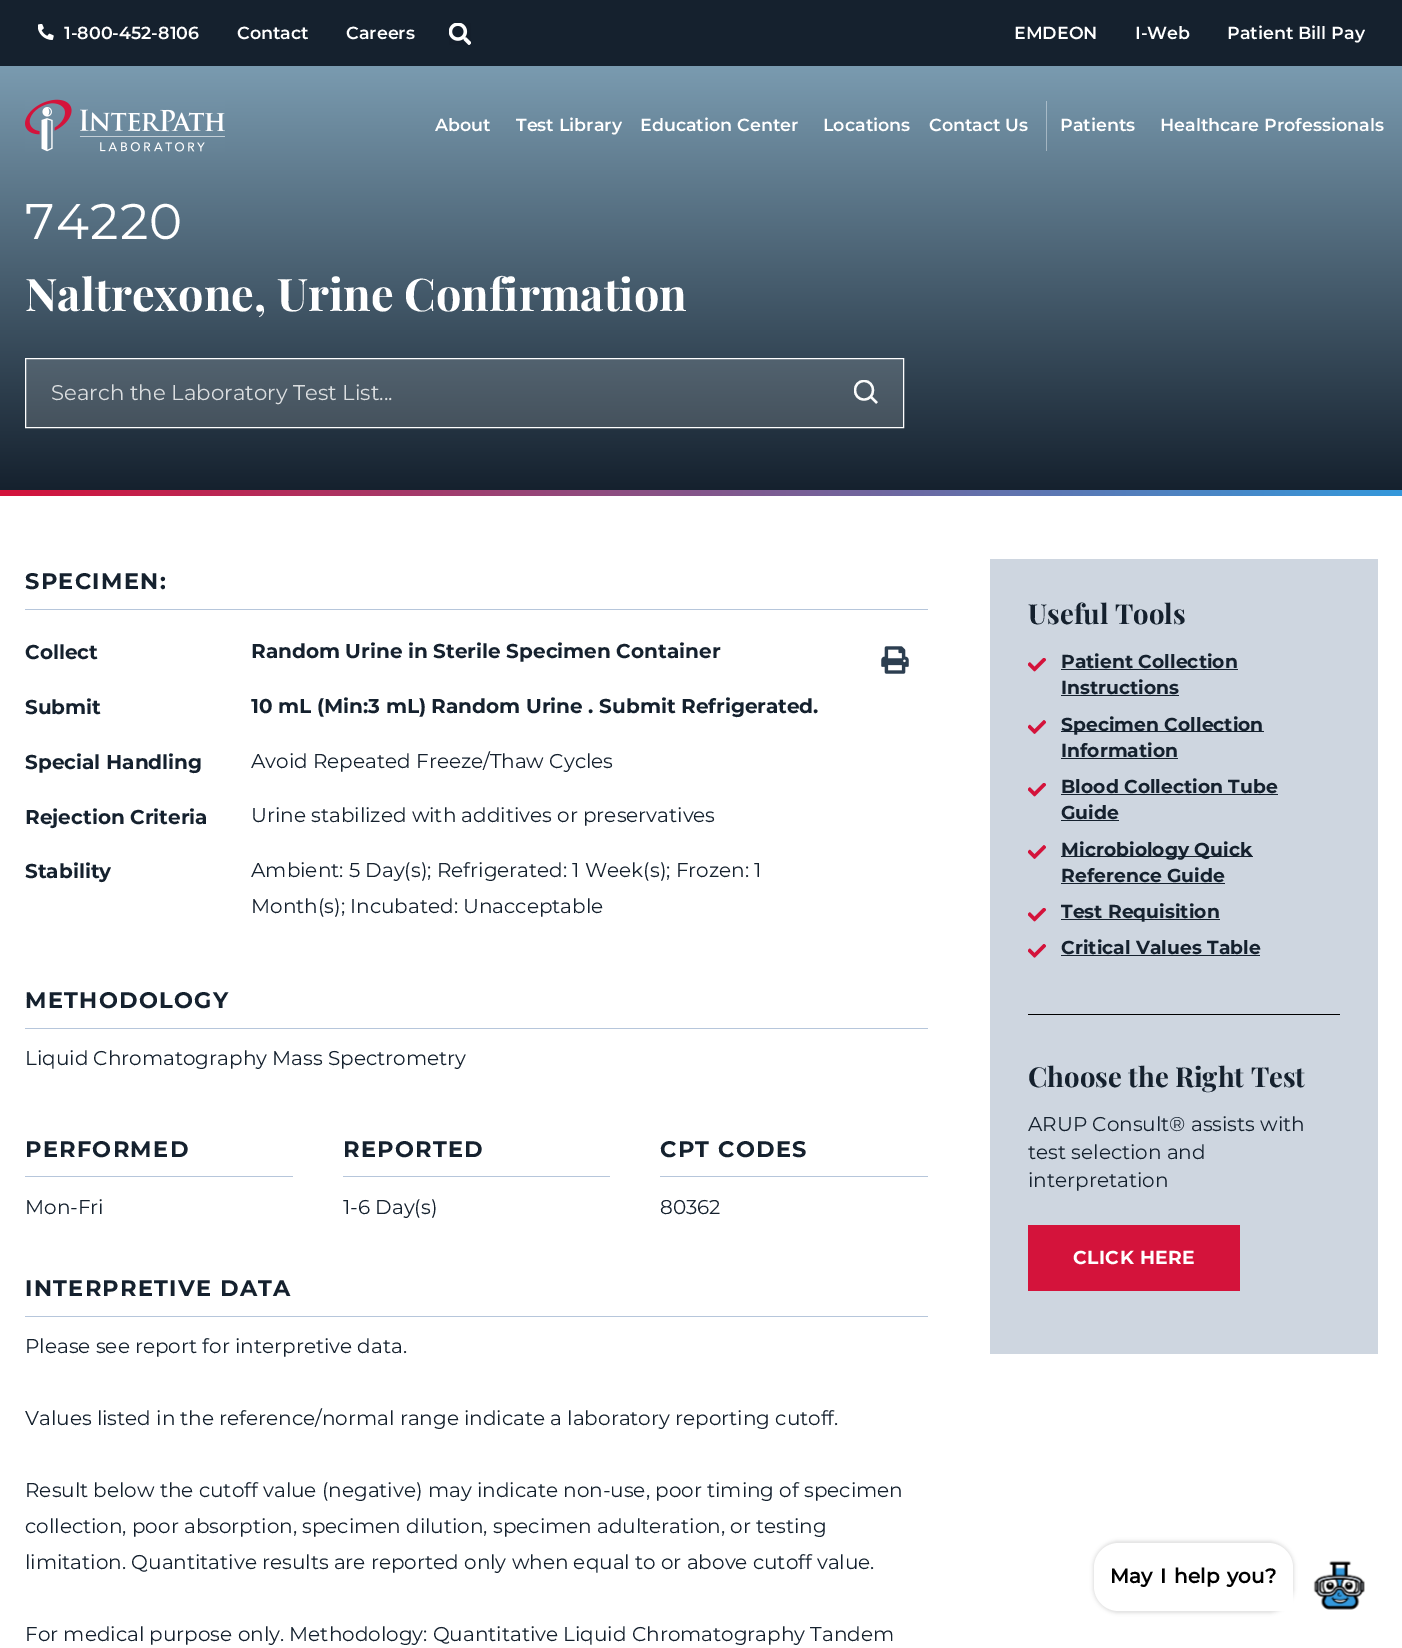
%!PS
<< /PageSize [1402 1648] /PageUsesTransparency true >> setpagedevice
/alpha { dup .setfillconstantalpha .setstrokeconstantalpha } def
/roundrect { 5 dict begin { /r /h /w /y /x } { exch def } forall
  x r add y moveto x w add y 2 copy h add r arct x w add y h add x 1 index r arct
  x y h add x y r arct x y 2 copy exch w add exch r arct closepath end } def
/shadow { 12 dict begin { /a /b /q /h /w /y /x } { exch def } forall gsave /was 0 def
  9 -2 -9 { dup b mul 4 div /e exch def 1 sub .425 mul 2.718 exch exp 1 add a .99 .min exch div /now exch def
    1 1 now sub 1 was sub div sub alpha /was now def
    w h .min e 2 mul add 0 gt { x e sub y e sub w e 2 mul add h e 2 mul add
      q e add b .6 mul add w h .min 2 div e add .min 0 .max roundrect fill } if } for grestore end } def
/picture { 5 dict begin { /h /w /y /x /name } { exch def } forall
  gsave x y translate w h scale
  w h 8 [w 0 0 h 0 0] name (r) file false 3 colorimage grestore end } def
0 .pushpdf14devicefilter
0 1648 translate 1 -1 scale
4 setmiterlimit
1 setgray
0 0 1402 1648 rectfill
0.082 0.129 0.18 setrgbcolor
0 0 1402 66 rectfill
(img1.rgb) 38 24 16 16 picture
/Montserrat-SemiBold [17.5 0 0 -17.5 0 0] selectfont
1 setgray
64 39 moveto (1-800-452-8106) show
237 39 moveto (Contact) show
346 39 moveto (Careers) show
(img2.rgb) 449 23 22 22 picture
1014 39 moveto (EMDEON) show
1135 39 moveto (I-Web) show
1227 39 moveto (Patient Bill Pay) show
gsave newpath 0 66 moveto 1402 66 lineto 1402 490 lineto 0 490 lineto closepath clip newpath
<< /ShadingType 2 /ColorSpace /DeviceRGB /Coords [701 66 701 490] /Extend [true true] /Function << /FunctionType 2 /Domain [0 1] /C0 [0.478 0.608 0.69] /C1 [0.082 0.129 0.18] /N 1 >> >> shfill grestore
(img3.rgb) 25 99 200 53 picture
435 131 moveto (About) show
516 131 moveto (Test Library) show
640 131 moveto (Education Center) show
823 131 moveto (Locations) show
929 131 moveto (Contact Us) show
1060 131 moveto (Patients) show
1160 131 moveto (Healthcare Professionals) show
gsave newpath 1046 101 moveto 1047 101 lineto 1047 151 lineto 1046 151 lineto closepath clip newpath
<< /ShadingType 2 /ColorSpace /DeviceRGB /Coords [701 66 701 490] /Extend [true true] /Function << /FunctionType 2 /Domain [0 1] /C0 [0.686 0.765 0.816] /C1 [0.451 0.478 0.51] /N 1 >> >> shfill grestore
gsave newpath 26 360 moveto 903 360 lineto 903 427 lineto 26 427 lineto closepath clip newpath
<< /ShadingType 2 /ColorSpace /DeviceRGB /Coords [701 66 701 490] /Extend [true true] /Function << /FunctionType 2 /Domain [0 1] /C0 [0.557 0.667 0.737] /C1 [0.22 0.259 0.302] /N 1 >> >> shfill grestore
/Montserrat-Regular [50 0 0 -50 0 0] selectfont
25 239 moveto 1.25 0 (74220) ashow
/PlayfairDisplay-Bold [45 0 0 -45 0 0] selectfont
25 311 moveto (Naltrexone, Urine Confirmation) show
0.298 0.357 0.404 setrgbcolor
26 359 877 1 rectfill
0.984 0.988 0.988 setrgbcolor
2.3 setlinewidth
newpath 877 403 moveto 870.5 396.5 lineto stroke
gsave
854 380 25 25 rectclip
2 setlinecap
newpath 864 399.5 moveto 876 399.5 876 381 864 381 curveto 852 381 852 399.5 864 399.5 curveto closepath stroke
grestore
1 setgray
1 setlinewidth
25.5 358.5 878 69 rectstroke
/Montserrat-Regular [21.25 0 0 -21.25 0 0] selectfont
0.859 0.871 0.878 setrgbcolor
51 400 moveto (Search the Laboratory Test List...) show
gsave newpath 0 490 moveto 1402 490 lineto 1402 496 lineto 0 496 lineto closepath clip newpath
<< /ShadingType 2 /ColorSpace /DeviceRGB /Coords [0 493 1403 493] /Extend [true true] /Function << /FunctionType 2 /Domain [0 1] /C0 [0.831 0.075 0.231] /C1 [0.204 0.596 0.859] /N 1 >> >> shfill grestore
0.714 0.776 0.859 setrgbcolor
25 609 903 1 rectfill
/Montserrat-Bold [22.5 0 0 -22.5 0 0] selectfont
0.082 0.129 0.18 setrgbcolor
25 589 moveto 1.25 0 (SPECIMEN:) ashow
/Montserrat-Bold [20 0 0 -20 0 0] selectfont
25 659 moveto (Collect) show
251 658 moveto (Random Urine in Sterile Specimen Container) show
25 714 moveto (Submit) show
251 713 moveto (10 mL \(Min:3 mL\) Random Urine . Submit Refrigerated.) show
25 769 moveto (Special Handling) show
/Montserrat-Regular [20 0 0 -20 0 0] selectfont
251 768 moveto (Avoid Repeated Freeze/Thaw Cycles) show
/Montserrat-Bold [20 0 0 -20 0 0] selectfont
25 824 moveto (Rejection Criteria) show
/Montserrat-Regular [20 0 0 -20 0 0] selectfont
251 822 moveto (Urine stabilized with additives or preservatives) show
/Montserrat-Bold [20 0 0 -20 0 0] selectfont
25 878 moveto (Stability) show
/Montserrat-Regular [20 0 0 -20 0 0] selectfont
251 877 moveto (Ambient: 5 Day\(s\); Refrigerated: 1 Week\(s\); Frozen: 1) show
251 913 moveto (Month\(s\); Incubated: Unacceptable) show
0.714 0.776 0.859 setrgbcolor
25 1028 903 1 rectfill
/Montserrat-Bold [22.5 0 0 -22.5 0 0] selectfont
0.082 0.129 0.18 setrgbcolor
25 1008 moveto 1.25 0 (METHODOLOGY) ashow
/Montserrat-Regular [20 0 0 -20 0 0] selectfont
25 1065 moveto (Liquid Chromatography Mass Spectrometry) show
0.714 0.776 0.859 setrgbcolor
25 1176 268 1 rectfill
/Montserrat-Bold [22.5 0 0 -22.5 0 0] selectfont
0.082 0.129 0.18 setrgbcolor
25 1157 moveto 1.25 0 (PERFORMED) ashow
/Montserrat-Regular [20 0 0 -20 0 0] selectfont
25 1214 moveto (Mon-Fri) show
0.714 0.776 0.859 setrgbcolor
343 1176 267 1 rectfill
/Montserrat-Bold [22.5 0 0 -22.5 0 0] selectfont
0.082 0.129 0.18 setrgbcolor
343 1157 moveto 1.25 0 (REPORTED) ashow
/Montserrat-Regular [20 0 0 -20 0 0] selectfont
343 1214 moveto (1-6 Day\(s\)) show
0.714 0.776 0.859 setrgbcolor
660 1176 268 1 rectfill
/Montserrat-Bold [22.5 0 0 -22.5 0 0] selectfont
0.082 0.129 0.18 setrgbcolor
660 1157 moveto 1.25 0 (CPT CODES) ashow
/Montserrat-Regular [20 0 0 -20 0 0] selectfont
660 1214 moveto (80362) show
0.714 0.776 0.859 setrgbcolor
25 1316 903 1 rectfill
/Montserrat-Bold [22.5 0 0 -22.5 0 0] selectfont
0.082 0.129 0.18 setrgbcolor
25 1296 moveto 1.25 0 (INTERPRETIVE DATA) ashow
/Montserrat-Regular [20 0 0 -20 0 0] selectfont
25 1353 moveto (Please see report for interpretive data.) show
25 1425 moveto (Values listed in the reference/normal range indicate a laboratory reporting cutoff.) show
25 1497 moveto (Result below the cutoff value \(negative\) may indicate non-use, poor timing of specimen) show
25 1533 moveto (collection, poor absorption, specimen dilution, specimen adulteration, or testing) show
25 1569 moveto (limitation. Quantitative results are reported only when equal to or above cutoff value.) show
25 1641 moveto (For medical purpose only. Methodology: Quantitative Liquid Chromatography Tandem) show
(img4.rgb) 881 646 28 28 picture
0.808 0.839 0.878 setrgbcolor
990 559 388 795 rectfill
/PlayfairDisplay-Bold [27.5 0 0 -27.5 0 0] selectfont
0.082 0.129 0.18 setrgbcolor
1028 624 moveto (Useful Tools) show
(img5.rgb) 1028 658 18 14 picture
/Montserrat-Bold [18.75 0 0 -18.75 0 0] selectfont
1061 668 moveto (Patient Collection) show
1061 669 177 1 rectfill
1061 694 moveto (Instructions) show
1061 695 118 1 rectfill
(img6.rgb) 1028 720 18 14 picture
1061 731 203 1 rectfill
1061 731 moveto (Specimen Collection) show
1061 757 moveto (Information) show
1061 758 117 1 rectfill
(img5.rgb) 1028 783 18 14 picture
1061 793 moveto (Blood Collection Tube) show
1061 794 217 1 rectfill
1061 819 moveto (Guide) show
1061 820 58 1 rectfill
(img6.rgb) 1028 845 18 14 picture
1061 856 192 1 rectfill
1061 856 moveto (Microbiology Quick) show
1061 882 moveto (Reference Guide) show
1061 883 164 1 rectfill
(img5.rgb) 1028 908 18 14 picture
1061 919 159 1 rectfill
1061 918 moveto (Test Requisition) show
(img7.rgb) 1028 944 18 14 picture
1061 954 moveto (Critical Values Table) show
1061 955 199 1 rectfill
0 setgray
1028 1014 312 1 rectfill
/PlayfairDisplay-Bold [27.5 0 0 -27.5 0 0] selectfont
0.082 0.129 0.18 setrgbcolor
1028 1087 moveto (Choose the Right Test) show
/Montserrat-Regular [20 0 0 -20 0 0] selectfont
1028 1131 moveto (ARUP Consult® assists with) show
1028 1159 moveto (test selection and) show
1028 1187 moveto (interpretation) show
0.831 0.075 0.231 setrgbcolor
1028 1225 212 66 rectfill
/Montserrat-Bold [18.75 0 0 -18.75 0 0] selectfont
1 setgray
1073 1264 moveto 0.4 0 (CLICK HERE) ashow
0.573 setgray
1093 1541 201 72 26 2 0.3 shadow
1 setgray
newpath 1119 1543 moveto 1268 1543 lineto 1282 1543 1293 1554 1293 1568 curveto 1293 1607 lineto 1293 1609 1291 1611 1289 1611 curveto 1119 1611 lineto 1105 1611 1094 1600 1094 1586 curveto 1094 1568 lineto 1094 1554 1105 1543 1119 1543 curveto closepath fill
/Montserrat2-Bold [20 0 0 -20 0 0] selectfont
0 setgray
1110 1583 moveto 2.5 0 32 (May I help you?) widthshow
(img8.rgb) 1313 1560 52 50 picture
.poppdf14devicefilter showpage
